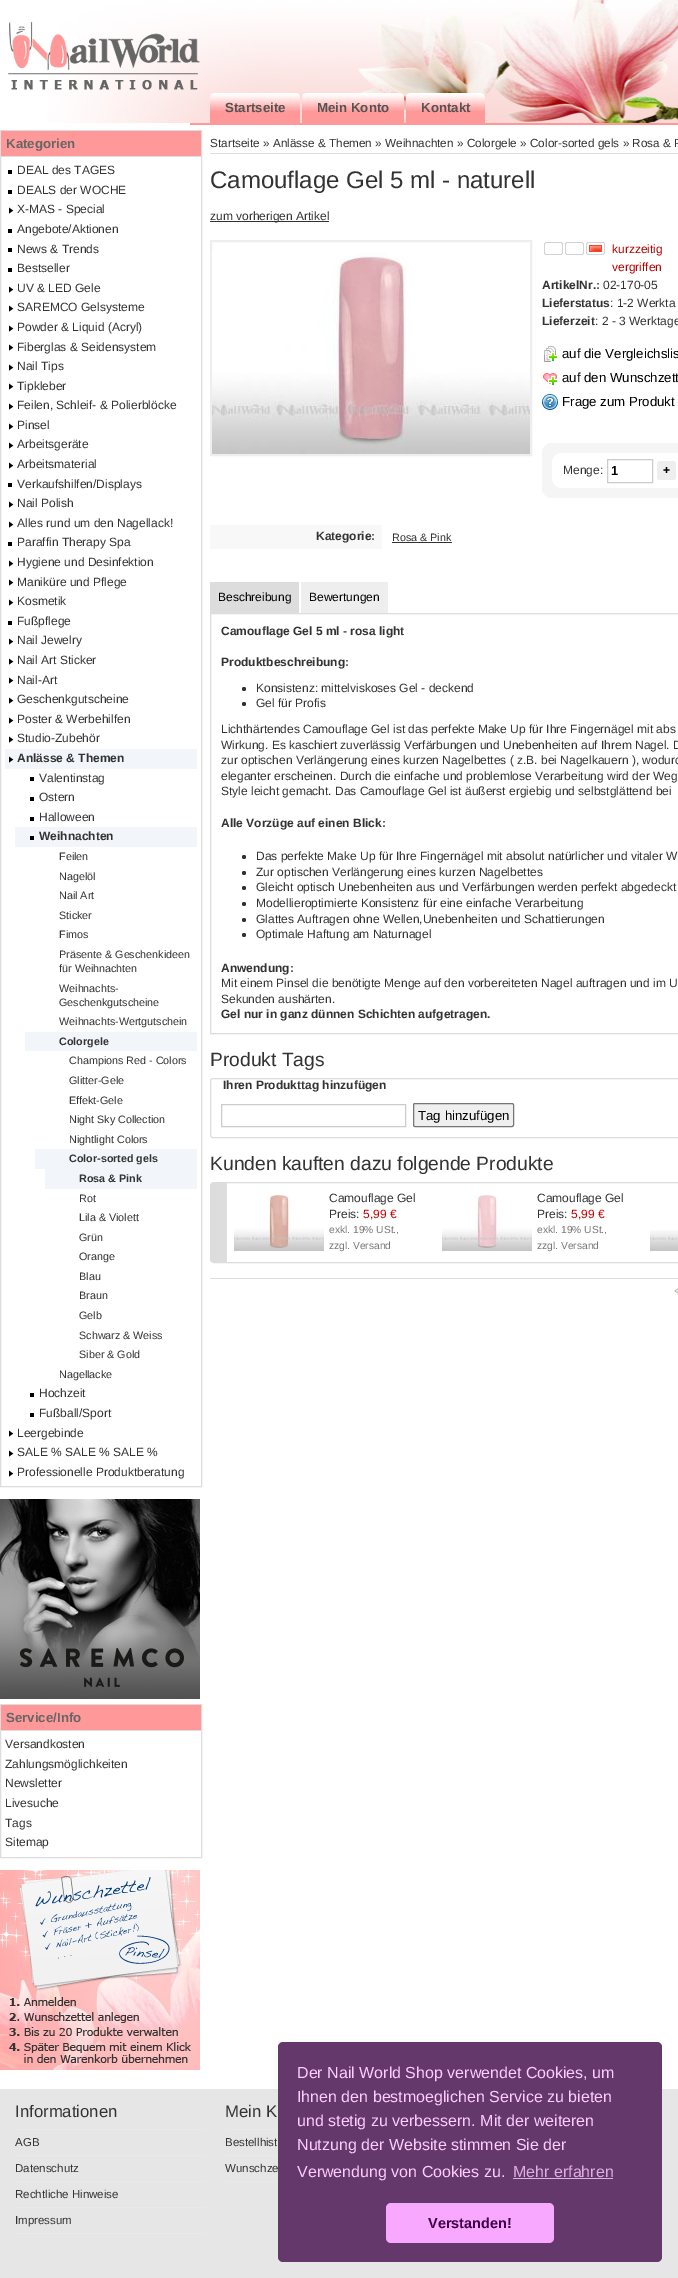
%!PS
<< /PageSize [678 2278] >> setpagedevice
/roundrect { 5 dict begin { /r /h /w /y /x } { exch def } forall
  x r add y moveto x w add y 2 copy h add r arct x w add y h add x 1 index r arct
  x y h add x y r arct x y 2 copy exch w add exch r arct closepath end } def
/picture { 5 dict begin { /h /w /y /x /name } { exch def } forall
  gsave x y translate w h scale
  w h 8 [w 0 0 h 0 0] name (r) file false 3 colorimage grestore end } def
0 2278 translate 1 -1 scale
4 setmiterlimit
1 setgray
0 0 678 2278 rectfill
(img1.rgb) 0 0 678 123 picture
(img2.rgb) 8 22 192 68 picture
1 0.6 0.6 setrgbcolor
190 123 488 2 rectfill
newpath 214 93 moveto 296 93 lineto 298 93 300 95 300 97 curveto 300 123 lineto 210 123 lineto 210 97 lineto 210 95 212 93 214 93 curveto closepath fill
(img3.rgb) 210 93 90 18 picture
/LiberationSans-Bold [13.25 0 0 -13.25 0 0] selectfont
0.325 setgray
225 112 moveto (Startseite) show
1 0.6 0.6 setrgbcolor
newpath 306 93 moveto 400 93 lineto 402 93 404 95 404 97 curveto 404 123 lineto 302 123 lineto 302 97 lineto 302 95 304 93 306 93 curveto closepath fill
(img4.rgb) 302 93 102 18 picture
0.325 setgray
317 112 moveto (Mein Konto) show
1 0.6 0.6 setrgbcolor
newpath 410 93 moveto 481 93 lineto 483 93 485 95 485 97 curveto 485 123 lineto 406 123 lineto 406 97 lineto 406 95 408 93 410 93 curveto closepath fill
(img5.rgb) 406 93 79 18 picture
0.325 setgray
421 112 moveto (Kontakt) show
0.867 setgray
0.5 130.5 201 1356 rectstroke
1 0.6 0.6 setrgbcolor
1 131 200 25 rectfill
0.867 setgray
1 156 200 1 rectfill
0.4 setgray
6 148 moveto (Kategorien) show
0 setgray
8 170 4 4 rectfill
/LiberationSans-Regular [12 0 0 -12 0 0] selectfont
0.2 setgray
17 174 moveto (DEAL des TAGES) show
0 setgray
8 190 4 4 rectfill
0.2 setgray
17 194 moveto (DEALS der WOCHE) show
(img6.rgb) 9 207 5 7 picture
17 213 moveto (X-MAS - Special) show
0 setgray
8 229 4 4 rectfill
0.2 setgray
17 233 moveto (Angebote/Aktionen) show
0 setgray
8 248 4 4 rectfill
0.2 setgray
17 253 moveto (News & Trends) show
0 setgray
8 268 4 4 rectfill
0.2 setgray
17 272 moveto (Bestseller) show
(img6.rgb) 9 286 5 7 picture
17 292 moveto (UV & LED Gele) show
(img6.rgb) 9 305 5 7 picture
17 311 moveto (SAREMCO Gelsysteme) show
(img6.rgb) 9 325 5 7 picture
17 331 moveto (Powder & Liquid \(Acryl\)) show
(img6.rgb) 9 344 5 7 picture
17 351 moveto (Fiberglas & Seidensystem) show
(img6.rgb) 9 364 5 7 picture
17 370 moveto (Nail Tips) show
(img6.rgb) 9 383 5 7 picture
17 390 moveto (Tipkleber) show
(img6.rgb) 9 403 5 7 picture
17 409 moveto (Feilen, Schleif- & Polierblöcke) show
(img6.rgb) 9 423 5 7 picture
17 429 moveto (Pinsel) show
(img6.rgb) 9 442 5 7 picture
17 448 moveto (Arbeitsgeräte) show
(img6.rgb) 9 462 5 7 picture
17 468 moveto (Arbeitsmaterial) show
0 setgray
8 483 4 4 rectfill
0.2 setgray
17 488 moveto (Verkaufshilfen/Displays) show
(img6.rgb) 9 501 5 7 picture
17 507 moveto (Nail Polish) show
(img6.rgb) 9 521 5 7 picture
17 527 moveto (Alles rund um den Nagellack!) show
0 setgray
8 542 4 4 rectfill
0.2 setgray
17 546 moveto (Paraffin Therapy Spa) show
(img6.rgb) 9 560 5 7 picture
17 566 moveto (Hygiene und Desinfektion) show
(img6.rgb) 9 579 5 7 picture
17 586 moveto (Maniküre und Pflege) show
(img6.rgb) 9 599 5 7 picture
17 605 moveto (Kosmetik) show
0 setgray
8 621 4 4 rectfill
0.2 setgray
17 625 moveto (Fußpflege) show
(img6.rgb) 9 638 5 7 picture
17 644 moveto (Nail Jewelry) show
(img6.rgb) 9 658 5 7 picture
17 664 moveto (Nail Art Sticker) show
(img6.rgb) 9 677 5 7 picture
17 684 moveto (Nail-Art) show
(img6.rgb) 9 697 5 7 picture
17 703 moveto (Geschenkgutscheine) show
(img6.rgb) 9 717 5 7 picture
17 723 moveto (Poster & Werbehilfen) show
(img6.rgb) 9 736 5 7 picture
17 742 moveto (Studio-Zubehör) show
0.949 0.961 0.98 setrgbcolor
5 749 192 20 rectfill
(img7.rgb) 9 756 5 7 picture
/LiberationSans-Bold [12 0 0 -12 0 0] selectfont
0.2 setgray
17 762 moveto (Anlässe & Themen) show
0 setgray
30 777 4 4 rectfill
/LiberationSans-Regular [12 0 0 -12 0 0] selectfont
0.2 setgray
39 782 moveto (Valentinstag) show
0 setgray
30 797 4 4 rectfill
0.2 setgray
39 801 moveto (Ostern) show
0 setgray
30 817 4 4 rectfill
0.2 setgray
39 821 moveto (Halloween) show
0.949 0.961 0.98 setrgbcolor
15 827 182 20 rectfill
0 setgray
30 836 4 4 rectfill
/LiberationSans-Bold [12 0 0 -12 0 0] selectfont
0.2 setgray
39 840 moveto (Weihnachten) show
/LiberationSans-Regular [10.75 0 0 -10.75 0 0] selectfont
59 860 moveto (Feilen) show
59 880 moveto (Nagelöl) show
59 899 moveto (Nail Art) show
59 919 moveto (Sticker) show
59 938 moveto (Fimos) show
59 958 moveto (Präsente & Geschenkideen) show
59 972 moveto (für Weihnachten) show
59 992 moveto (Weihnachts-) show
59 1006 moveto (Geschenkgutscheine) show
59 1025 moveto (Weihnachts-Wertgutschein) show
0.949 0.961 0.98 setrgbcolor
25 1032 172 19 rectfill
/LiberationSans-Bold [10.75 0 0 -10.75 0 0] selectfont
0.2 setgray
59 1045 moveto (Colorgele) show
/LiberationSans-Regular [10.75 0 0 -10.75 0 0] selectfont
69 1064 moveto (Champions Red - Colors) show
69 1084 moveto (Glitter-Gele) show
69 1104 moveto (Effekt-Gele) show
69 1123 moveto (Night Sky Collection) show
69 1143 moveto (Nightlight Colors) show
0.949 0.961 0.98 setrgbcolor
35 1149 162 20 rectfill
/LiberationSans-Bold [10.75 0 0 -10.75 0 0] selectfont
0.2 setgray
69 1162 moveto (Color-sorted gels) show
0.949 0.961 0.98 setrgbcolor
45 1169 152 20 rectfill
0.2 setgray
79 1182 moveto (Rosa & Pink) show
/LiberationSans-Regular [10.75 0 0 -10.75 0 0] selectfont
79 1202 moveto (Rot) show
79 1221 moveto (Lila & Violett) show
79 1241 moveto (Grün) show
79 1260 moveto (Orange) show
79 1280 moveto (Blau) show
79 1299 moveto (Braun) show
79 1319 moveto (Gelb) show
79 1339 moveto (Schwarz & Weiss) show
79 1358 moveto (Siber & Gold) show
59 1378 moveto (Nagellacke) show
0 setgray
30 1393 4 4 rectfill
/LiberationSans-Regular [12 0 0 -12 0 0] selectfont
0.2 setgray
39 1397 moveto (Hochzeit) show
0 setgray
30 1413 4 4 rectfill
0.2 setgray
39 1417 moveto (Fußball/Sport) show
(img6.rgb) 9 1430 5 7 picture
17 1437 moveto (Leergebinde) show
(img6.rgb) 9 1450 5 7 picture
17 1456 moveto (SALE % SALE % SALE %) show
(img6.rgb) 9 1470 5 7 picture
17 1476 moveto (Professionelle Produktberatung) show
(img8.rgb) 0 1499 200 200 picture
0.867 setgray
0.5 1704.5 201 153 rectstroke
1 0.6 0.6 setrgbcolor
1 1705 200 25 rectfill
0.867 setgray
1 1730 200 1 rectfill
/LiberationSans-Bold [13.25 0 0 -13.25 0 0] selectfont
0.4 setgray
6 1722 moveto (Service/Info) show
/LiberationSans-Regular [12 0 0 -12 0 0] selectfont
0.2 setgray
5 1748 moveto (Versandkosten) show
5 1768 moveto (Zahlungsmöglichkeiten) show
5 1787 moveto (Newsletter) show
5 1807 moveto (Livesuche) show
5 1827 moveto (Tags) show
5 1846 moveto (Sitemap) show
(img9.rgb) 0 1870 200 200 picture
0.867 setgray
210 153 468 1 rectfill
/LiberationSans-Regular [11.75 0 0 -11.75 0 0] selectfont
0.2 setgray
210 147 moveto (Startseite » Anlässe & Themen » Weihnachten » Colorgele » Color-sorted gels » Rosa & P) show
/LiberationSans-Regular [24 0 0 -24 0 0] selectfont
210 188 moveto (Camouflage Gel 5 ml - naturell) show
210 221 119 1 rectfill
/LiberationSans-Regular [12 0 0 -12 0 0] selectfont
210 220 moveto (zum vorherigen Artikel) show
0.933 setgray
2 setlinewidth
211 241 320 214 rectstroke
(img10.rgb) 212 252 318 202 picture
(img11.rgb) 544 242 61 13 picture
0.722 0 0 setrgbcolor
612 253 moveto (kurzzeitig) show
612 271 moveto (vergriffen) show
/LiberationSans-Bold [12 0 0 -12 0 0] selectfont
0.2 setgray
542 289 moveto (ArtikelNr.:) show
/LiberationSans-Regular [12 0 0 -12 0 0] selectfont
603 289 moveto (02-170-05) show
/LiberationSans-Bold [12 0 0 -12 0 0] selectfont
542 307 moveto (Lieferstatus) show
/LiberationSans-Regular [12 0 0 -12 0 0] selectfont
610 307 moveto (: 1-2 Werkta) show
/LiberationSans-Bold [12 0 0 -12 0 0] selectfont
542 325 moveto (Lieferzeit) show
/LiberationSans-Regular [12 0 0 -12 0 0] selectfont
595 325 moveto (: 2 - 3 Werktage) show
(img12.rgb) 544 346 13 16 picture
/LiberationSans-Regular [13.25 0 0 -13.25 0 0] selectfont
0 setgray
562 358 moveto (auf die Vergleichslis) show
(img13.rgb) 543 373 14 12 picture
562 382 moveto (auf den Wunschzett) show
(img14.rgb) 542 394 16 16 picture
562 406 moveto (Frage zum Produkt) show
0.961 setgray
542 443 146 55 10 roundrect fill
1 setgray
552 453 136 35 10 roundrect fill
/LiberationSans-Regular [12 0 0 -12 0 0] selectfont
0.2 setgray
563 474 moveto (Menge:) show
0.8 setgray
1 setlinewidth
607.5 459.5 45 23 rectstroke
/LiberationSans-Bold [13 0 0 -13 0 0] selectfont
0 setgray
611 475 moveto (1) show
0.933 setgray
657 461 19 19 3 roundrect fill
/LiberationSans-Bold [12 0 0 -12 0 0] selectfont
0 setgray
663 474 moveto (+) show
0.973 setgray
210 525 172 24 rectfill
0.2 setgray
316 540 moveto (Kategorie:) show
/LiberationSans-Regular [10.75 0 0 -10.75 0 0] selectfont
392 541 moveto (Rosa & Pink) show
392 542 60 1 rectfill
0.867 setgray
210 582 89 31 rectfill
/LiberationSans-Regular [12 0 0 -12 0 0] selectfont
0 setgray
218 601 moveto (Beschreibung) show
0.933 setgray
301 582 87 31 rectfill
0 setgray
309 601 moveto (Bewertungen) show
0.867 setgray
210.5 613.5 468 420 rectstroke
/LiberationSans-Bold [12 0 0 -12 0 0] selectfont
0.2 setgray
221 635 moveto (Camouflage Gel 5 ml - rosa light) show
221 666 moveto (Produktbeschreibung:) show
newpath 244 689 2 0 360 arc closepath fill
/LiberationSans-Regular [12 0 0 -12 0 0] selectfont
256 692 moveto (Konsistenz: mittelviskoses Gel - deckend) show
newpath 244 704 2 0 360 arc closepath fill
256 707 moveto (Gel für Profis) show
221 733 moveto (Lichthärtendes Camouflage Gel ist das perfekte Make Up für Ihre Fingernägel mit abs) show
221 749 moveto (Wirkung. Es kaschiert zuverlässig Verfärbungen und Unebenheiten auf Ihrem Nagel. D) show
221 764 moveto (zur optischen Verlängerung eines kurzen Nagelbettes \( z.B. bei Nagelkauern \), wodurc) show
221 780 moveto (eleganter erscheinen. Durch die einfache und problemlose Verarbeitung wird der Weg) show
221 795 moveto (Style leicht gemacht. Das Camouflage Gel ist äußerst ergiebig und selbstglättend bei) show
/LiberationSans-Bold [12 0 0 -12 0 0] selectfont
221 827 moveto (Alle Vorzüge auf einen Blick:) show
newpath 244 857 2 0 360 arc closepath fill
/LiberationSans-Regular [12 0 0 -12 0 0] selectfont
256 860 moveto (Das perfekte Make Up für Ihre Fingernägel mit absolut natürlicher und vitaler W) show
newpath 244 873 2 0 360 arc closepath fill
256 876 moveto (Zur optischen Verlängerung eines kurzen Nagelbettes) show
newpath 244 888 2 0 360 arc closepath fill
256 891 moveto (Gleicht optisch Unebenheiten aus und Verfärbungen werden perfekt abgedeckt) show
newpath 244 904 2 0 360 arc closepath fill
256 907 moveto (Modellieroptimierte Konsistenz für eine einfache Verarbeitung) show
newpath 244 920 2 0 360 arc closepath fill
256 923 moveto (Glattes Auftragen ohne Wellen,Unebenheiten und Schattierungen) show
newpath 244 935 2 0 360 arc closepath fill
256 938 moveto (Optimale Haftung am Naturnagel) show
/LiberationSans-Bold [12 0 0 -12 0 0] selectfont
221 972 moveto (Anwendung:) show
/LiberationSans-Regular [12 0 0 -12 0 0] selectfont
221 987 moveto (Mit einem Pinsel die benötigte Menge auf den vorbereiteten Nagel auftragen und im U) show
221 1003 moveto (Sekunden aushärten.) show
/LiberationSans-Bold [12 0 0 -12 0 0] selectfont
221 1018 moveto (Gel nur in ganz dünnen Schichten aufgetragen.) show
/LiberationSans-Regular [19.25 0 0 -19.25 0 0] selectfont
210 1066 moveto (Produkt Tags) show
0.867 setgray
210.5 1078.5 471 59 2.5 roundrect stroke
/LiberationSans-Bold [12 0 0 -12 0 0] selectfont
0.2 setgray
223 1089 moveto (Ihren Produkttag hinzufügen) show
0.8 setgray
221.5 1104.5 184 22 rectstroke
0.937 setgray
413.5 1103.5 100 23 1.5 roundrect gsave fill grestore
0.463 setgray
stroke
/LiberationSans-Regular [13.25 0 0 -13.25 0 0] selectfont
0 setgray
418 1120 moveto (Tag hinzufügen) show
/LiberationSans-Regular [19.25 0 0 -19.25 0 0] selectfont
0.2 setgray
210 1170 moveto (Kunden kauften dazu folgende Produkte) show
0.867 setgray
210.5 1182.5 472 80 3.5 roundrect stroke
211 1183 16 79 rectfill
(img15.rgb) 234 1194 90 57 picture
/LiberationSans-Regular [12 0 0 -12 0 0] selectfont
0.2 setgray
329 1202 moveto (Camouflage Gel) show
329 1218 moveto (Preis:) show
0.816 0 0 setrgbcolor
363 1218 moveto (5,99 €) show
/LiberationSans-Regular [10.25 0 0 -10.25 0 0] selectfont
0.467 setgray
329 1233 moveto (exkl. 19% USt.,) show
329 1249 moveto (zzgl. Versand) show
(img16.rgb) 442 1195 90 56 picture
/LiberationSans-Regular [12 0 0 -12 0 0] selectfont
0.2 setgray
537 1202 moveto (Camouflage Gel) show
537 1218 moveto (Preis:) show
0.816 0 0 setrgbcolor
571 1218 moveto (5,99 €) show
/LiberationSans-Regular [10.25 0 0 -10.25 0 0] selectfont
0.467 setgray
537 1233 moveto (exkl. 19% USt.,) show
537 1249 moveto (zzgl. Versand) show
(img17.rgb) 650 1230 28 21 picture
0.867 setgray
210 1278 468 1 rectfill
(img18.rgb) 674 1288 4 6 picture
0.902 setgray
0 2089 678 189 rectfill
0.91 0.914 0.918 setrgbcolor
15 2129 190 1 rectfill
/LiberationSans-Regular [16.75 0 0 -16.75 0 0] selectfont
0.2 setgray
15 2117 moveto (Informationen) show
0.91 0.914 0.918 setrgbcolor
15 2155 190 1 rectfill
/LiberationSans-Regular [11.5 0 0 -11.5 0 0] selectfont
0.2 setgray
15 2146 moveto (AGB) show
0.91 0.914 0.918 setrgbcolor
15 2181 190 1 rectfill
0.2 setgray
15 2172 moveto (Datenschutz) show
0.91 0.914 0.918 setrgbcolor
15 2207 190 1 rectfill
0.2 setgray
15 2198 moveto (Rechtliche Hinweise) show
0.91 0.914 0.918 setrgbcolor
15 2233 190 1 rectfill
0.2 setgray
15 2224 moveto (Impressum) show
0.91 0.914 0.918 setrgbcolor
225 2129 53 1 rectfill
/LiberationSans-Regular [16.75 0 0 -16.75 0 0] selectfont
0.2 setgray
225 2117 moveto (Mein K) show
0.91 0.914 0.918 setrgbcolor
225 2155 53 1 rectfill
/LiberationSans-Regular [11.5 0 0 -11.5 0 0] selectfont
0.2 setgray
225 2146 moveto (Bestellhist) show
0.91 0.914 0.918 setrgbcolor
225 2181 53 1 rectfill
0.2 setgray
225 2172 moveto (Wunschze) show
0.392 0.22 0.42 setrgbcolor
278 2042 384 220 5 roundrect fill
/LiberationSans-Regular [16 0 0 -16 0 0] selectfont
1 0.804 0.992 setrgbcolor
297 2078 moveto (Der Nail World Shop verwendet Cookies, um) show
297 2102 moveto (Ihnen den bestmoeglichen Service zu bieten) show
297 2126 moveto (und stetig zu verbessern. Mit der weiteren) show
297 2150 moveto (Nutzung der Website stimmen Sie der) show
297 2177 moveto (Verwendung von Cookies zu.) show
0.878 0.686 0.878 setrgbcolor
513 2177 moveto (Mehr erfahren) show
513 2178 100 1 rectfill
0.973 0.659 1 setrgbcolor
386 2203 168 40 5 roundrect fill
/LiberationSans-Bold [14.5 0 0 -14.5 0 0] selectfont
0.247 0 0.271 setrgbcolor
428 2228 moveto (Verstanden!) show
showpage
